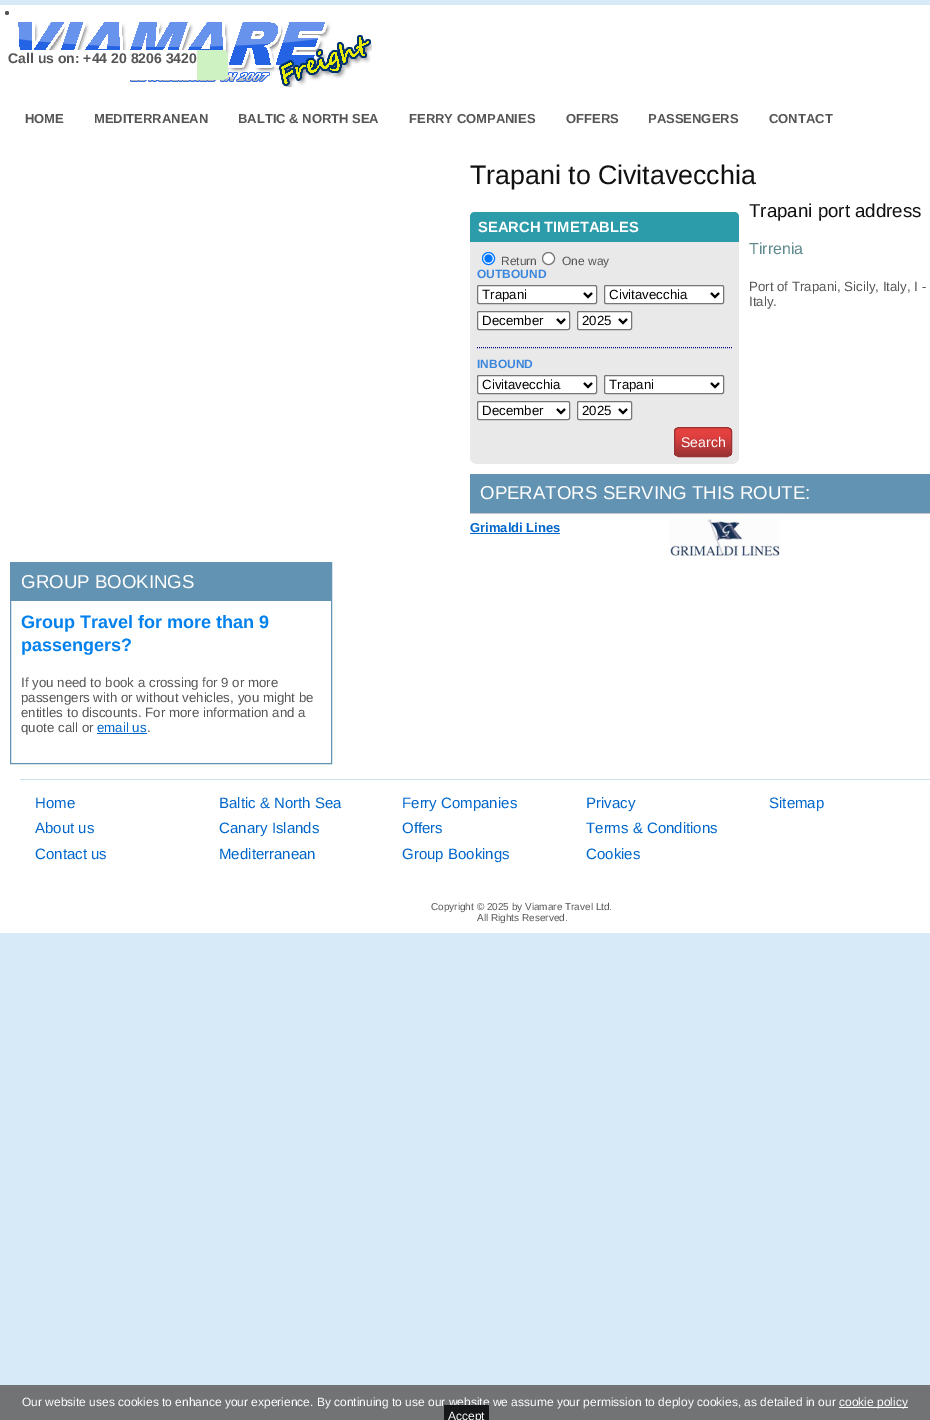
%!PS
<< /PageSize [930 1420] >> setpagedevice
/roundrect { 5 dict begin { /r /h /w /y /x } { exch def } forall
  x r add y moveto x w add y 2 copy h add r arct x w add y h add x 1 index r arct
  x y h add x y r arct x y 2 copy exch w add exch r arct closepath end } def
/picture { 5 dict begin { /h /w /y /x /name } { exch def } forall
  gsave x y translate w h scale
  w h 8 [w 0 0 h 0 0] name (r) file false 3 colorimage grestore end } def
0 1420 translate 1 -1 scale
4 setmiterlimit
0.843 0.918 0.969 setrgbcolor
0 0 930 1420 rectfill
1 setgray
0 5 930 928 rectfill
(img1.rgb) 18 22 354 65 picture
0.333 setgray
newpath 7 13 2 0 360 arc closepath fill
0.808 0.949 0.761 setrgbcolor
8 50 220 30 5 roundrect fill
1 setgray
8 50 189 30 rectfill
/LiberationSans-Bold [14 0 0 -14 0 0] selectfont
0.333 setgray
8 63 moveto (Call us on: +44 20 8206 3420) show
/LiberationSans-Bold [13 0 0 -13 0 0] selectfont
25 123 moveto (HOME) show
94 123 moveto (MEDITERRANEAN) show
238 123 moveto (BALTIC & NORTH SEA) show
409 123 moveto (FERRY COMPANIES) show
566 123 moveto (OFFERS) show
648 123 moveto (PASSENGERS) show
769 123 moveto (CONTACT) show
/LiberationSans-Regular [26.75 0 0 -26.75 0 0] selectfont
0.067 setgray
470 184 moveto (Trapani to Civitavecchia) show
0.176 0.612 0.667 setrgbcolor
newpath 475 212 moveto 734 212 lineto 737 212 739 214 739 217 curveto 739 242 lineto 470 242 lineto 470 217 lineto 470 214 472 212 475 212 curveto closepath fill
/LiberationSans-Bold [14.75 0 0 -14.75 0 0] selectfont
1 setgray
478 232 moveto (SEARCH TIMETABLES) show
0.914 setgray
newpath 470 242 moveto 739 242 lineto 739 457 lineto 739 461 736 464 732 464 curveto 477 464 lineto 473 464 470 461 470 457 curveto closepath fill
1 setgray
newpath 488.5 258.5 6 0 360 arc closepath gsave fill grestore
0 0.459 1 setrgbcolor
stroke
newpath 488.5 258.5 4 0 360 arc closepath fill
/LiberationSans-Regular [12 0 0 -12 0 0] selectfont
0.333 setgray
501 265 moveto (Return) show
1 setgray
newpath 548.5 258.5 6 0 360 arc closepath gsave fill grestore
0.463 setgray
stroke
0.333 setgray
562 265 moveto (One way) show
/LiberationSans-Bold [12 0 0 -12 0 0] selectfont
0.235 0.529 0.871 setrgbcolor
477 278 moveto (OUTBOUND) show
1 setgray
477.5 285.5 119 18 1.5 roundrect gsave fill grestore
0.463 setgray
stroke
0 setgray
2 setlinewidth
newpath 584 293 moveto 588 297 lineto 592 293 lineto stroke
/LiberationSans-Regular [13.3 0 0 -13.3 0 0] selectfont
482 299 moveto (Trapani) show
1 setgray
604.5 285.5 119 18 1.5 roundrect gsave fill grestore
0.463 setgray
1 setlinewidth
stroke
0 setgray
2 setlinewidth
newpath 711 293 moveto 715 297 lineto 719 293 lineto stroke
609 299 moveto (Civitavecchia) show
1 setgray
477.5 311.5 92 18 1.5 roundrect gsave fill grestore
0.463 setgray
1 setlinewidth
stroke
0 setgray
2 setlinewidth
newpath 557 319 moveto 561 323 lineto 565 319 lineto stroke
482 325 moveto (December) show
1 setgray
577.5 311.5 54 18 1.5 roundrect gsave fill grestore
0.463 setgray
1 setlinewidth
stroke
0 setgray
2 setlinewidth
newpath 619 319 moveto 623 323 lineto 627 319 lineto stroke
582 325 moveto (2025) show
0 0 0.502 setrgbcolor
1 setlinewidth
[1 1] 0 setdash
newpath 477 347.5 moveto 732 347.5 lineto stroke
/LiberationSans-Bold [12 0 0 -12 0 0] selectfont
0.235 0.529 0.871 setrgbcolor
477 368 moveto (INBOUND) show
1 setgray
477.5 375.5 119 18 1.5 roundrect gsave fill grestore
0.463 setgray
[] 0 setdash
stroke
0 setgray
2 setlinewidth
newpath 584 383 moveto 588 387 lineto 592 383 lineto stroke
/LiberationSans-Regular [13.3 0 0 -13.3 0 0] selectfont
482 389 moveto (Civitavecchia) show
1 setgray
604.5 375.5 119 18 1.5 roundrect gsave fill grestore
0.463 setgray
1 setlinewidth
stroke
0 setgray
2 setlinewidth
newpath 711 383 moveto 715 387 lineto 719 383 lineto stroke
609 389 moveto (Trapani) show
1 setgray
477.5 401.5 92 18 1.5 roundrect gsave fill grestore
0.463 setgray
1 setlinewidth
stroke
0 setgray
2 setlinewidth
newpath 557 409 moveto 561 413 lineto 565 409 lineto stroke
482 415 moveto (December) show
1 setgray
577.5 401.5 54 18 1.5 roundrect gsave fill grestore
0.463 setgray
1 setlinewidth
stroke
0 setgray
2 setlinewidth
newpath 619 409 moveto 623 413 lineto 627 409 lineto stroke
582 415 moveto (2025) show
gsave
674 427 58 30 5 roundrect clip newpath
gsave newpath 674 428 moveto 732 428 lineto 732 456 lineto 674 456 lineto closepath clip newpath
<< /ShadingType 2 /ColorSpace /DeviceRGB /Coords [703 428 703 456] /Extend [true true] /Function << /FunctionType 3 /Domain [0 1] /Functions [<< /FunctionType 2 /Domain [0 1] /C0 [0.89 0.251 0.251] /C1 [0.89 0.251 0.251] /N 1 >> << /FunctionType 2 /Domain [0 1] /C0 [0.89 0.251 0.251] /C1 [0.6 0.2 0.2] /N 1 >>] /Bounds [0.25] /Encode [0 1 0 1] >> >> shfill grestore
grestore
0.6 0.2 0.2 setrgbcolor
1 setlinewidth
674.5 427.5 57 29 4.5 roundrect stroke
/LiberationSans-Regular [14 0 0 -14 0 0] selectfont
1 setgray
681 447 moveto (Search) show
/LiberationSans-Regular [18.7 0 0 -18.7 0 0] selectfont
0.067 setgray
749 217 moveto (Trapani port address) show
/LiberationSans-Regular [16 0 0 -16 0 0] selectfont
0.369 0.541 0.557 setrgbcolor
749 254 moveto (Tirrenia) show
/LiberationSans-Regular [13.3 0 0 -13.3 0 0] selectfont
0.333 setgray
749 291 moveto (Port of Trapani, Sicily, Italy, I -) show
749 306 moveto (Italy.) show
0.384 0.576 0.702 setrgbcolor
470 474 460 39 rectfill
/LiberationSans-Regular [18.7 0 0 -18.7 0 0] selectfont
1 setgray
480 499 moveto (OPERATORS SERVING THIS ROUTE:) show
0.776 setgray
470 513 460 1 rectfill
/LiberationSans-Bold [13 0 0 -13 0 0] selectfont
0 0.4 0.8 setrgbcolor
470 532 moveto (Grimaldi Lines) show
470 533 90 1 rectfill
(img2.rgb) 670 519 110 38 picture
0.384 0.576 0.702 setrgbcolor
10.5 562.5 321 201 rectstroke
11 563 320 38 rectfill
/LiberationSans-Regular [18.7 0 0 -18.7 0 0] selectfont
1 setgray
21 588 moveto (GROUP BOOKINGS) show
/LiberationSans-Bold [18 0 0 -18 0 0] selectfont
0.004 0.506 0.929 setrgbcolor
21 628 moveto (Group Travel for more than 9) show
21 651 moveto (passengers?) show
/LiberationSans-Regular [13.3 0 0 -13.3 0 0] selectfont
0.333 setgray
21 687 moveto (If you need to book a crossing for 9 or more) show
21 702 moveto (passengers with or without vehicles, you might be) show
21 717 moveto (entitles to discounts. For more information and a) show
21 732 moveto (quote call or) show
0 0.4 0.8 setrgbcolor
97 732 moveto (email us) show
97 733 50 1 rectfill
0.333 setgray
147 732 moveto (.) show
0.788 0.878 0.929 setrgbcolor
20 779 910 1 rectfill
/LiberationSans-Regular [15 0 0 -15 0 0] selectfont
0 0.4 0.8 setrgbcolor
35 808 moveto (Home) show
35 833 moveto (About us) show
35 859 moveto (Contact us) show
219 808 moveto (Baltic & North Sea) show
219 833 moveto (Canary Islands) show
219 859 moveto (Mediterranean) show
402 808 moveto (Ferry Companies) show
402 833 moveto (Offers) show
402 859 moveto (Group Bookings) show
586 808 moveto (Privacy) show
586 833 moveto (Terms & Conditions) show
586 859 moveto (Cookies) show
769 808 moveto (Sitemap) show
/LiberationSans-Regular [10 0 0 -10 0 0] selectfont
0.333 setgray
431 910 moveto (Copyright © 2025 by Viamare Travel Ltd.) show
477 921 moveto (All Rights Reserved.) show
0.443 0.451 0.459 setrgbcolor
0 1385 930 35 rectfill
/LiberationSans-Regular [12 0 0 -12 0 0] selectfont
1 setgray
22 1406 moveto (Our website uses cookies to enhance your experience. By continuing to use our website we assume your permission to deploy cookies, as detailed in our) show
0.984 0.992 0.996 setrgbcolor
839 1407 69 1 rectfill
1 setgray
839 1406 moveto (cookie policy) show
0.086 0.09 0.098 setrgbcolor
444 1405 45 15 rectfill
1 setgray
448 1420 moveto (Accept) show
showpage
